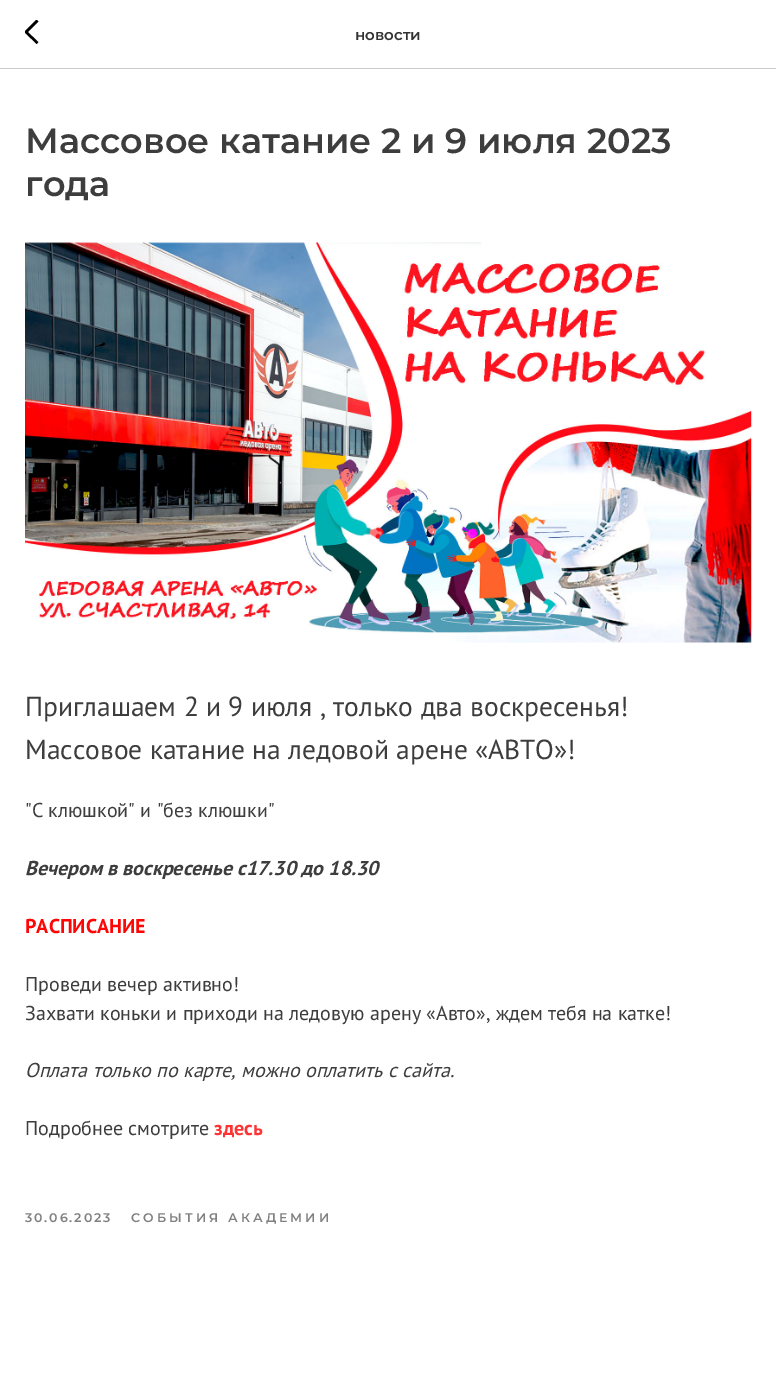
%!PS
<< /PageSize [776 1396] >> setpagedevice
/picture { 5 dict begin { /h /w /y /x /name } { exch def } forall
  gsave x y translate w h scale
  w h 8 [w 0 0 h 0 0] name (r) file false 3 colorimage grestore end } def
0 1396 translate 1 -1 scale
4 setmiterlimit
1 setgray
0 0 776 1396 rectfill
0.8 setgray
0 68 776 1 rectfill
gsave
25 20 14 25 rectclip
0 setgray
2.5 setlinewidth
newpath 37.5 43 moveto 26 32 lineto 37.5 20.5 lineto stroke
grestore
/Montserrat-SemiBold [15 0 0 -15 0 0] selectfont
0.2 setgray
355 40 moveto (новости) show
/Montserrat-SemiBold [35 0 0 -35 0 0] selectfont
0.239 setgray
25 153 moveto (Массовое катание 2 и 9 июля 2023) show
25 196 moveto (года) show
(img1.rgb) 25 242 727 401 picture
/PTSans-Regular [27.5 0 0 -27.5 0 0] selectfont
25 716 moveto (Приглашаем 2 и 9 июля , только два воскресенья!) show
25 759 moveto (Массовое катание на ледовой арене «АВТО»!) show
/PTSans-Regular [20 0 0 -20 0 0] selectfont
25 817 moveto ("С клюшкой" и "без клюшки") show
/PTSans-BoldItalic [20 0 0 -20 0 0] selectfont
25 875 moveto (Вечером в воскресенье с17.30 до 18.30) show
/PTSans-Bold [20 0 0 -20 0 0] selectfont
1 0.02 0.02 setrgbcolor
25 933 moveto (РАСПИСАНИЕ) show
/PTSans-Regular [20 0 0 -20 0 0] selectfont
0.239 setgray
25 991 moveto (Проведи вечер активно!) show
25 1020 moveto (Захвати коньки и приходи на ледовую арену «Авто», ждем тебя на катке!) show
/PTSans-Italic [20 0 0 -20 0 0] selectfont
25 1077 moveto (Оплата только по карте, можно оплатить с сайта.) show
/PTSans-Regular [20 0 0 -20 0 0] selectfont
25 1135 moveto (Подробнее смотрите) show
/PTSans-Bold [20 0 0 -20 0 0] selectfont
1 0.2 0.2 setrgbcolor
214 1135 moveto (здесь) show
/Montserrat-SemiBold [12.5 0 0 -12.5 0 0] selectfont
0.502 setgray
25 1222 moveto 1.9 0 (30.06.2023) ashow
131 1222 moveto 3.1 0 (СОБЫТИЯ АКАДЕМИИ) ashow
showpage
